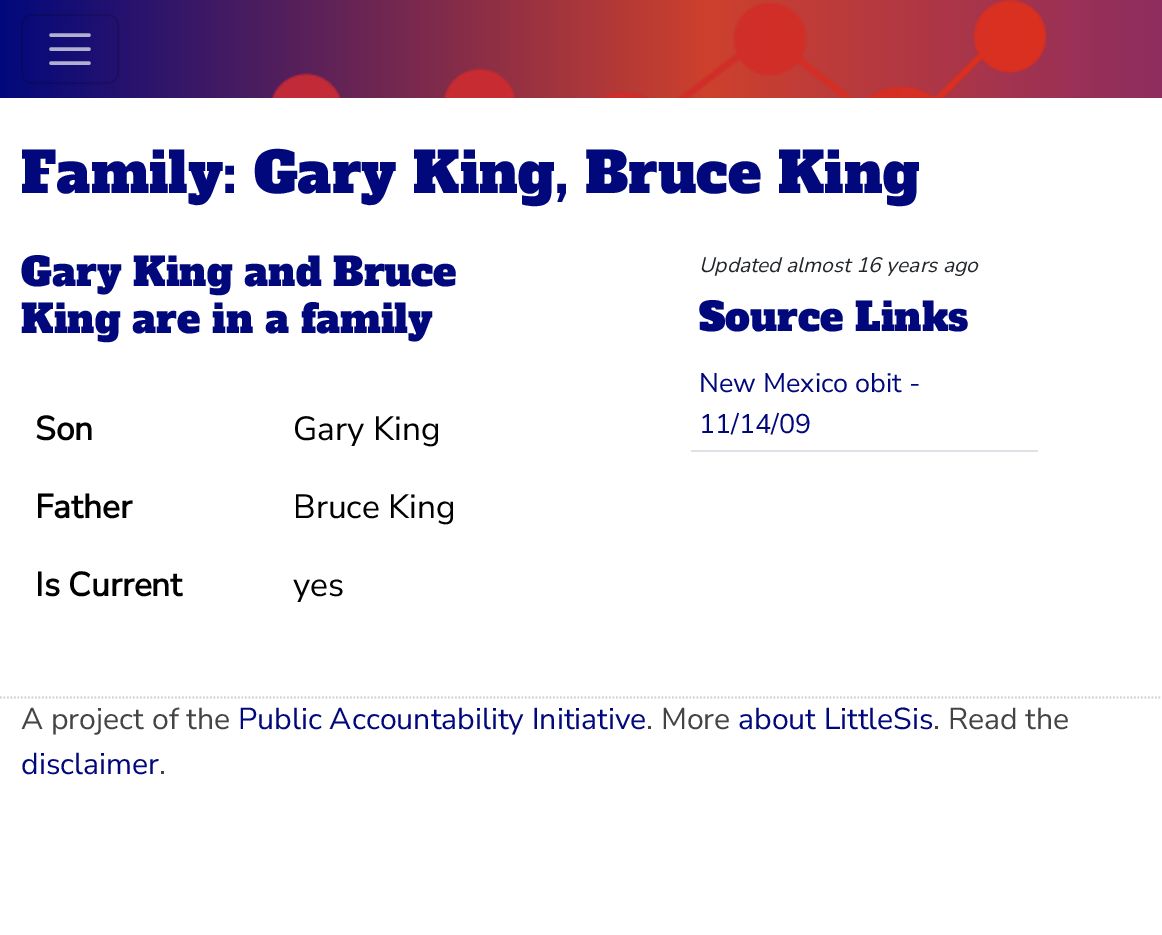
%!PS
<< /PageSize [1162 935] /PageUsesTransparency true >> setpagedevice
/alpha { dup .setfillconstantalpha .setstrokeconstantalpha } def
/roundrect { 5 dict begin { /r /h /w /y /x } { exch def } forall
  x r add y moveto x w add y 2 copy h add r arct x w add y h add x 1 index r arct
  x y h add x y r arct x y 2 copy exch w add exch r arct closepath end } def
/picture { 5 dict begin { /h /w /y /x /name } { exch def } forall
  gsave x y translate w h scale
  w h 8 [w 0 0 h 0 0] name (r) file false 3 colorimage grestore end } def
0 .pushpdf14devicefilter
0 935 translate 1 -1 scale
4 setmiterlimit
1 setgray
0 0 1162 935 rectfill
(img1.rgb) 0 0 1162 98 picture
0.15 alpha
0 setgray
2 setlinewidth
22 15 96 68 10 roundrect stroke
0.75 alpha
0.898 0.902 0.945 setrgbcolor
3.5 setlinewidth
1 setlinecap
newpath 51 35 moveto 89 35 lineto 51 49 moveto 89 49 lineto 51 63 moveto 89 63 lineto stroke
/AlfaSlabOne-Regular [55.9 0 0 -55.9 0 0] selectfont
1 alpha
0.004 0.031 0.486 setrgbcolor
21 193 moveto (Family: Gary King, Bruce King) show
/AlfaSlabOne-Regular [39.25 0 0 -39.25 0 0] selectfont
21 286 moveto (Gary King and Bruce) show
21 333 moveto (King are in a family) show
/NunitoSans-Bold [33.5 0 0 -33.5 0 0] selectfont
0 setgray
35 440 moveto (Son) show
/NunitoSans-Regular [33.5 0 0 -33.5 0 0] selectfont
293 440 moveto (Gary King) show
/NunitoSans-Bold [33.5 0 0 -33.5 0 0] selectfont
35 518 moveto (Father) show
/NunitoSans-Regular [33.5 0 0 -33.5 0 0] selectfont
293 518 moveto (Bruce King) show
/NunitoSans-Bold [33.5 0 0 -33.5 0 0] selectfont
35 596 moveto (Is Current) show
/NunitoSans-Regular [33.5 0 0 -33.5 0 0] selectfont
293 596 moveto (yes) show
/NunitoSans-Italic [21 0 0 -21 0 0] selectfont
0.129 0.145 0.161 setrgbcolor
699 272 moveto (Updated almost 16 years ago) show
/AlfaSlabOne-Regular [39.25 0 0 -39.25 0 0] selectfont
0.004 0.031 0.486 setrgbcolor
699 331 moveto (Source Links) show
0.871 0.886 0.902 setrgbcolor
691 450 347 2 rectfill
/NunitoSans-Regular [27 0 0 -27 0 0] selectfont
0.004 0.031 0.486 setrgbcolor
699 392 moveto (New Mexico obit -) show
699 433 moveto (11/14/09) show
0.8 setgray
1.8 setlinewidth
0 setlinecap
[1.75 1.75] 0 setdash
newpath 0 697.5 moveto 1162 697.5 lineto stroke
/NunitoSans-Regular [30.25 0 0 -30.25 0 0] selectfont
0.267 setgray
21 729 moveto (A project of the) show
0.004 0.031 0.486 setrgbcolor
238 729 moveto (Public Accountability Initiative) show
0.267 setgray
646 729 moveto (. More) show
0.004 0.031 0.486 setrgbcolor
738 729 moveto (about LittleSis) show
0.267 setgray
933 729 moveto (. Read the) show
0.004 0.031 0.486 setrgbcolor
21 774 moveto (disclaimer) show
0.267 setgray
159 774 moveto (.) show
.poppdf14devicefilter showpage
